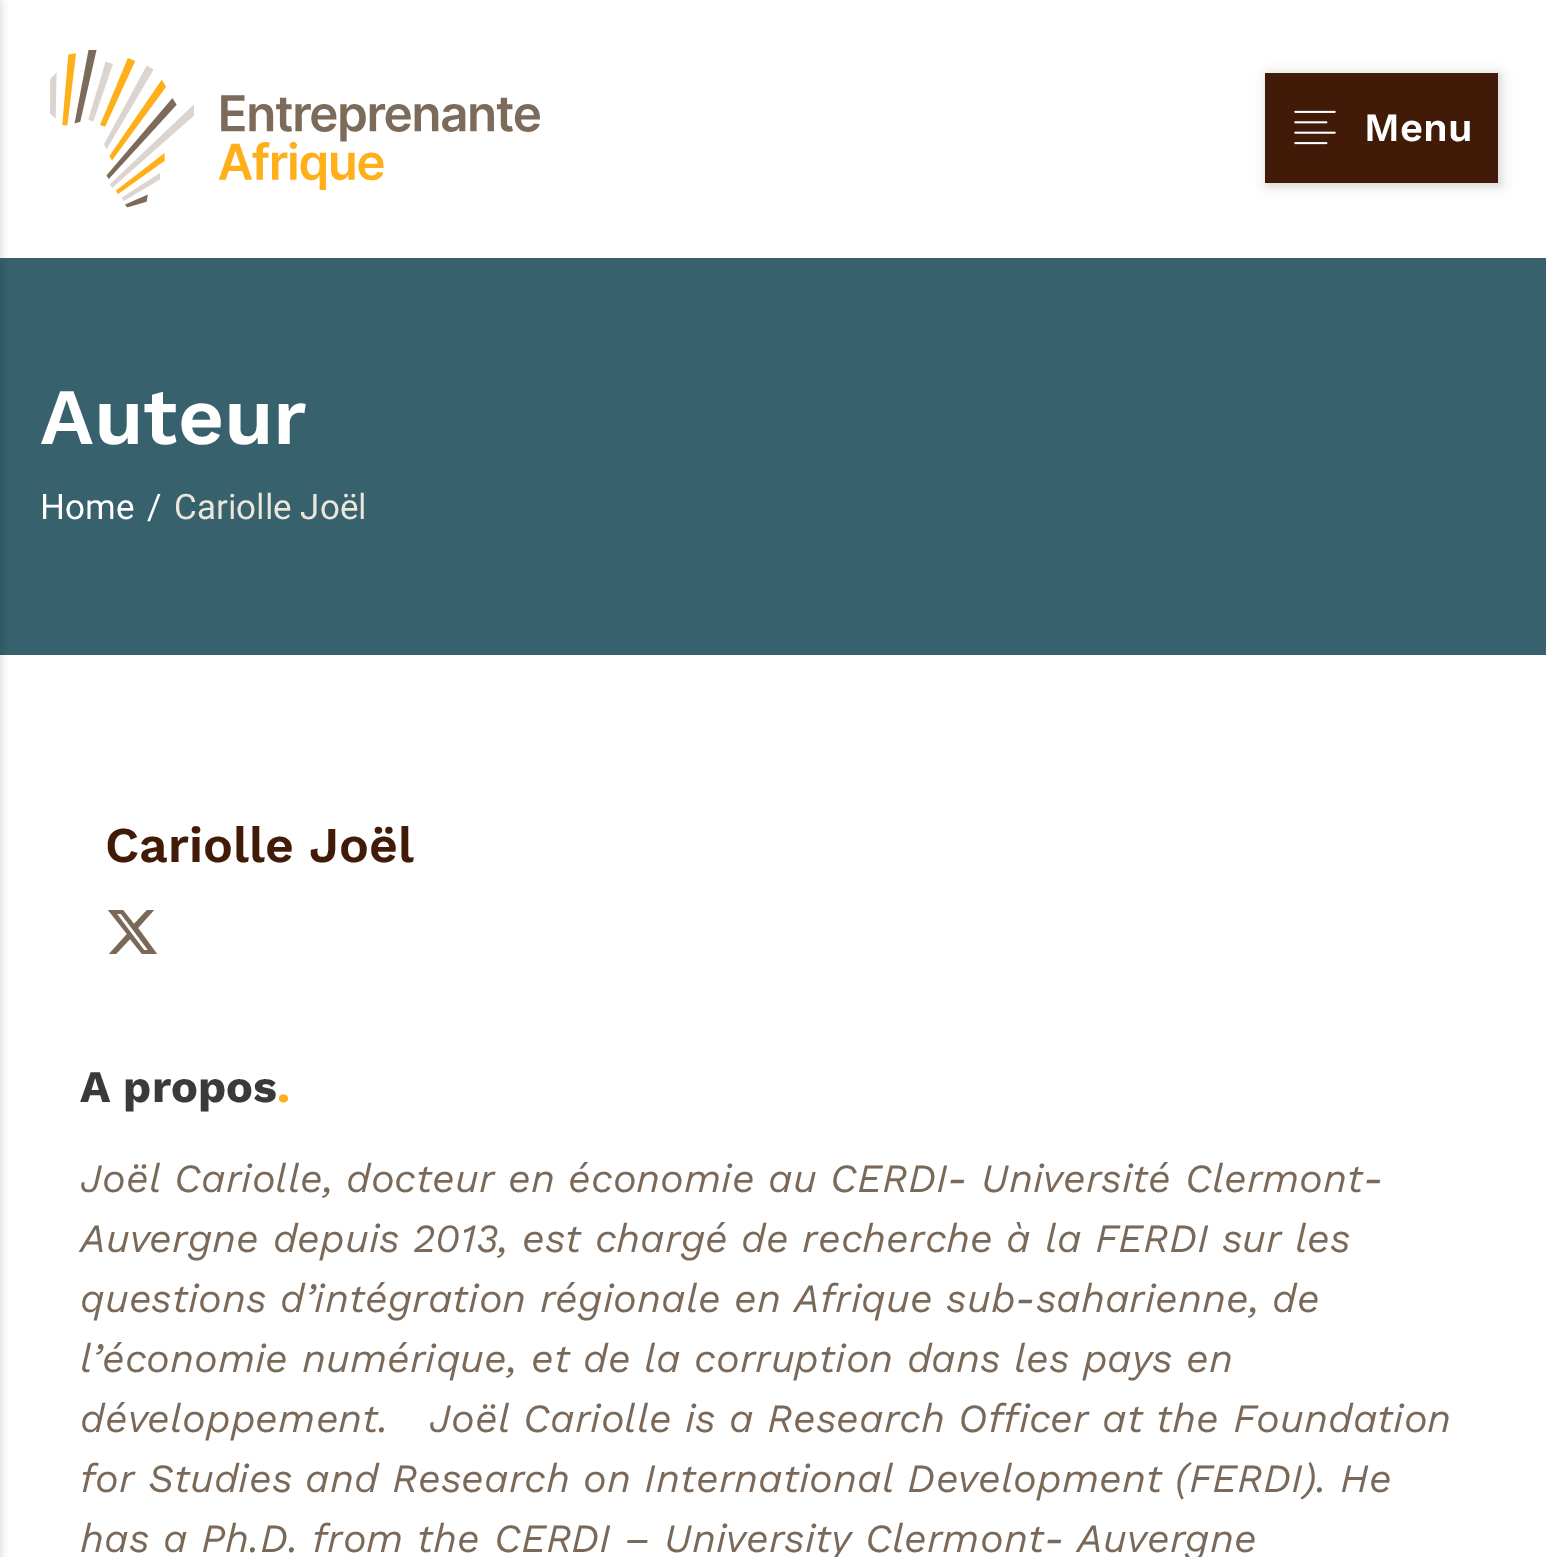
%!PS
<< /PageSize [1546 1557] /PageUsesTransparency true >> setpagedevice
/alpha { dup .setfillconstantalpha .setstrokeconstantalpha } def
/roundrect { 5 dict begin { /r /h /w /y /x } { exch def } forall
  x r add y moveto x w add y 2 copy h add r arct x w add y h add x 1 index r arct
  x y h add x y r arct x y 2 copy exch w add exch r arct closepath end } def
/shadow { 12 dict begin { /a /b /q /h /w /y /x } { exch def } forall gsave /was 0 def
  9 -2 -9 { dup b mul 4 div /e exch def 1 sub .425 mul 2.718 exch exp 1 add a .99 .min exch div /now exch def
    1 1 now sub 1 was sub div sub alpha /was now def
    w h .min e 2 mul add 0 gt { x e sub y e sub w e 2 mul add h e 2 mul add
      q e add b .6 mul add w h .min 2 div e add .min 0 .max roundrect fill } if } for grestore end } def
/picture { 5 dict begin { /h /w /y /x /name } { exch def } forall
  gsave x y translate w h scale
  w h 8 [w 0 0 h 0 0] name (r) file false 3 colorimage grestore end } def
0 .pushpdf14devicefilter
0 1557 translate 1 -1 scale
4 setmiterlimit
1 setgray
0 0 1546 1557 rectfill
(img1.rgb) 50 50 490 158 picture
0.212 0.38 0.427 setrgbcolor
0 258 1546 397 rectfill
0 setgray
-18 3 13 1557 0 6 0.5 shadow
1268 75 232 110 0 6 0.2 shadow
0.255 0.106 0.031 setrgbcolor
1265 73 233 110 rectfill
(img2.rgb) 1294 110 42 35 picture
/WorkSans-SemiBold [40 0 0 -40 0 0] selectfont
1 setgray
1364 141 moveto (Menu) show
/WorkSans-SemiBold [80 0 0 -80 0 0] selectfont
40 444 moveto (Auteur) show
/Roboto-Regular [35 0 0 -35 0 0] selectfont
40 519 moveto (Home) show
147 519 moveto (/) show
0.918 0.902 0.859 setrgbcolor
174 519 moveto (Cariolle Joël) show
/WorkSans-SemiBold [50 0 0 -50 0 0] selectfont
0.255 0.106 0.031 setrgbcolor
105 862 moveto (Cariolle Joël) show
0.478 0.412 0.349 setrgbcolor
newpath 147 910 moveto 154 910 lineto 138 928 lineto 157 954 lineto 142 954 lineto 130 939 lineto 116 954 lineto 109 954 lineto 127 934 lineto 108 910 lineto 123 910 lineto 134 924 lineto closepath 144 950 moveto 148 950 lineto 121 914 lineto 117 914 lineto closepath fill
/WorkSans-Bold [45 0 0 -45 0 0] selectfont
0.227 0.227 0.231 setrgbcolor
80 1102 moveto (A propos) show
1 0.686 0.098 setrgbcolor
277 1102 moveto (.) show
/WorkSans-Italic [40 0 0 -40 0 0] selectfont
0.478 0.412 0.349 setrgbcolor
80 1192 moveto (Joël Cariolle, docteur en économie au CERDI- Université Clermont-) show
80 1252 moveto (Auvergne depuis 2013, est chargé de recherche à la FERDI sur les) show
80 1312 moveto (questions d’intégration régionale en Afrique sub-saharienne, de) show
80 1372 moveto (l’économie numérique, et de la corruption dans les pays en) show
80 1432 moveto (développement.) show
429 1432 moveto (Joël Cariolle is a Research Officer at the Foundation) show
80 1492 moveto (for Studies and Research on International Development \(FERDI\). He) show
80 1552 moveto (has a Ph.D. from the CERDI – University Clermont- Auvergne) show
.poppdf14devicefilter showpage
